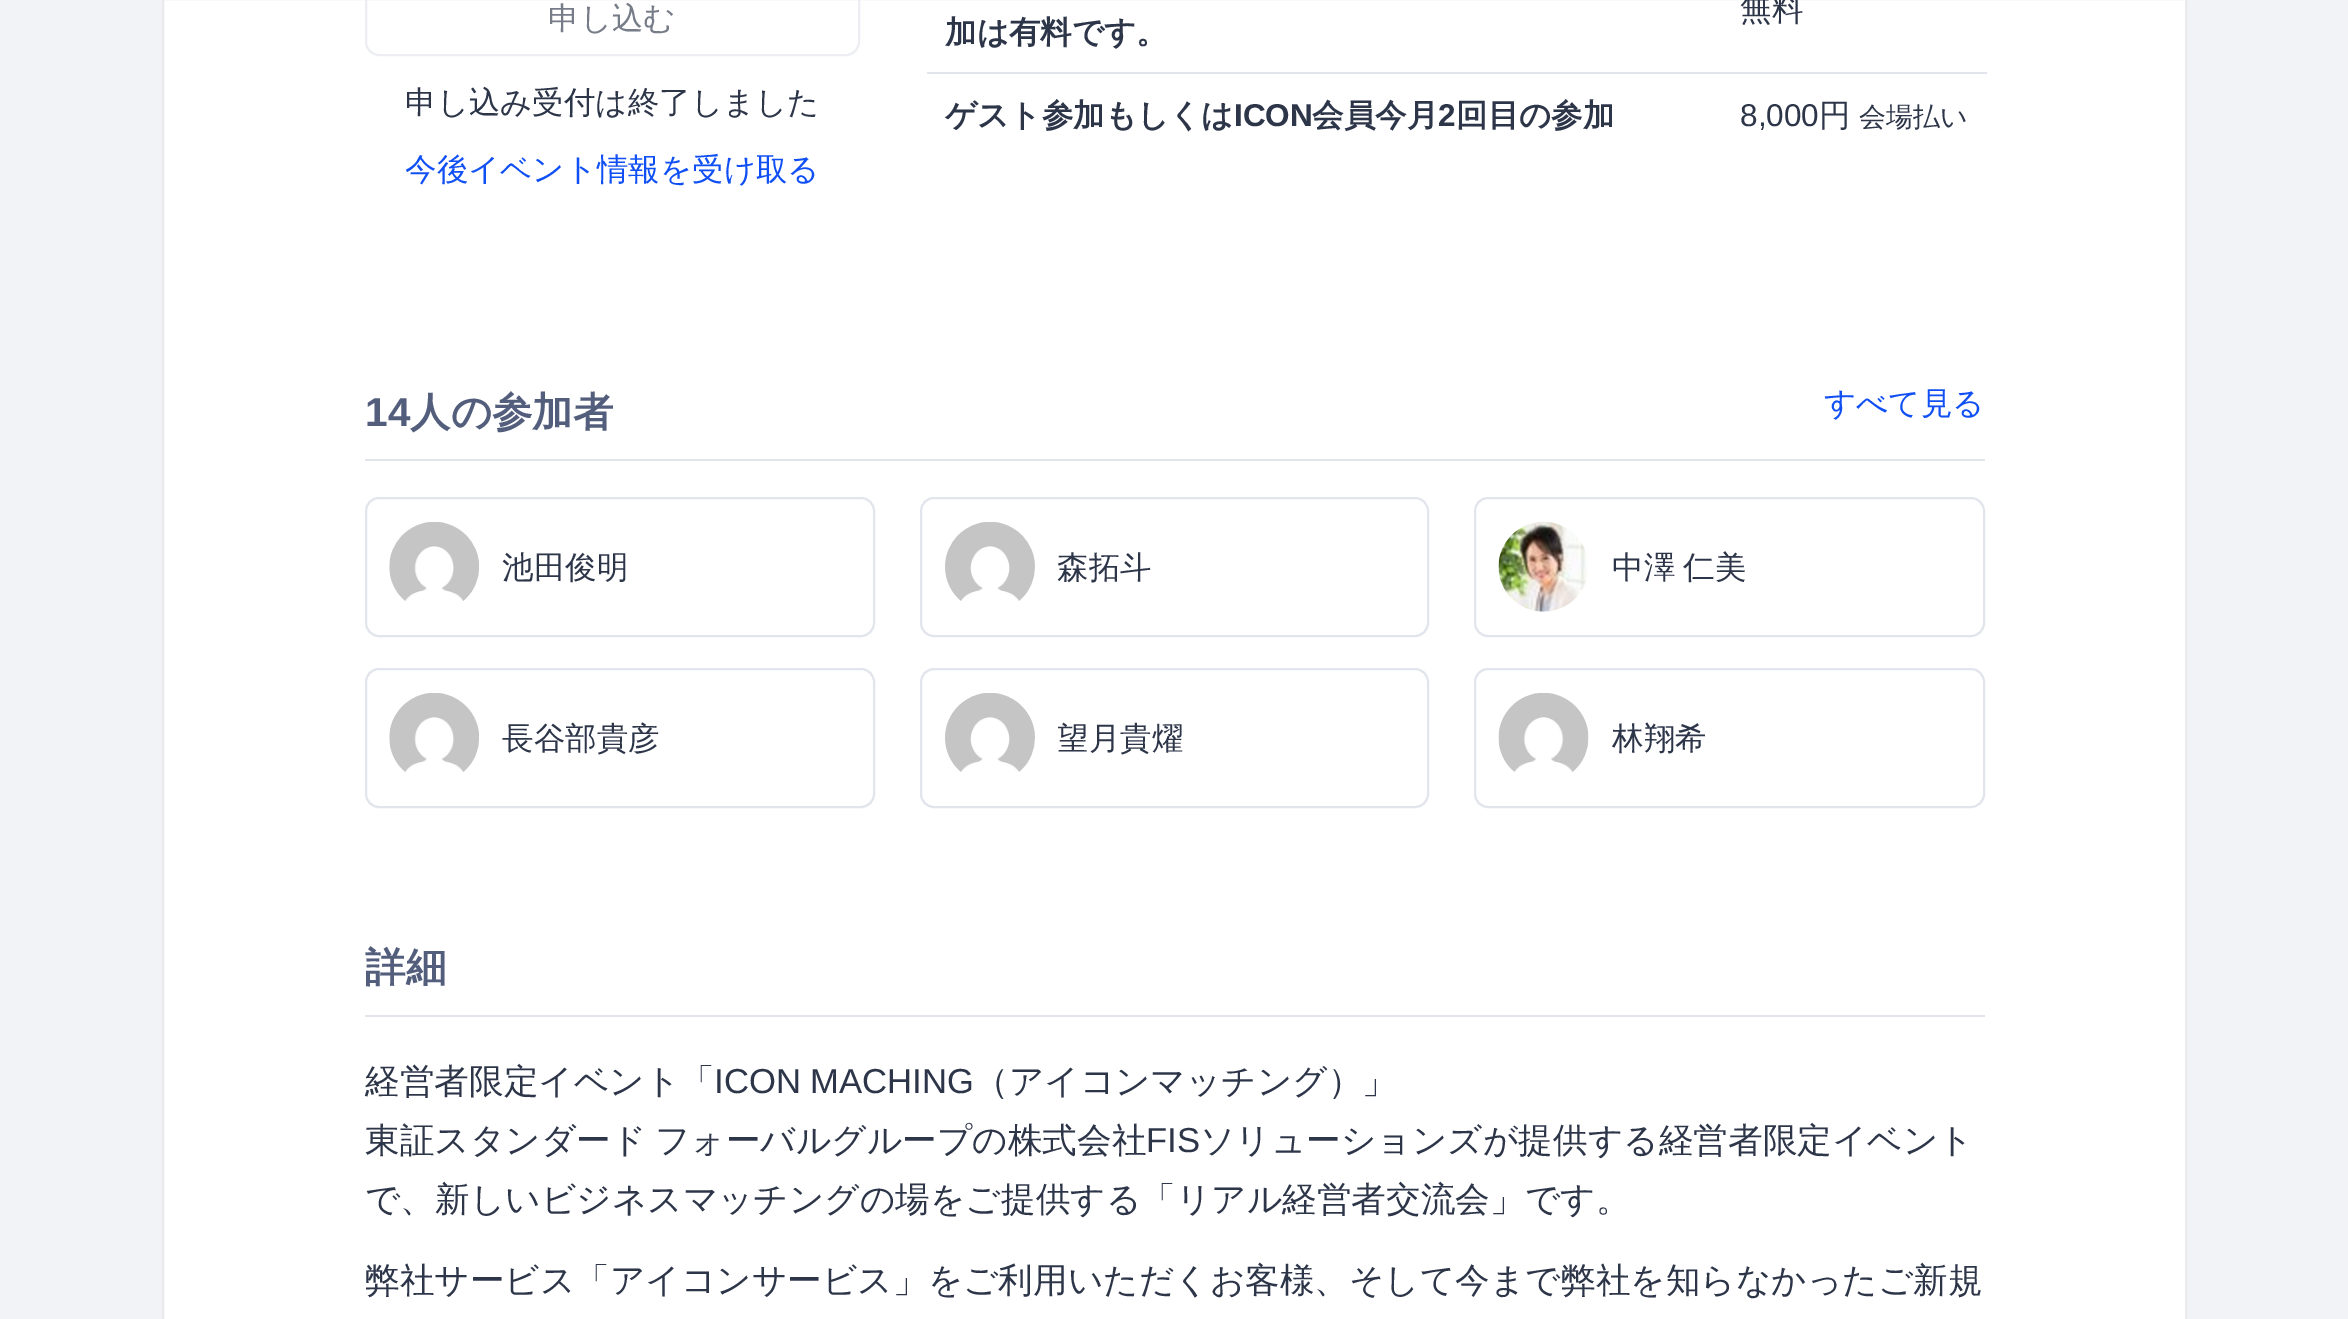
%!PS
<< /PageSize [2348 1319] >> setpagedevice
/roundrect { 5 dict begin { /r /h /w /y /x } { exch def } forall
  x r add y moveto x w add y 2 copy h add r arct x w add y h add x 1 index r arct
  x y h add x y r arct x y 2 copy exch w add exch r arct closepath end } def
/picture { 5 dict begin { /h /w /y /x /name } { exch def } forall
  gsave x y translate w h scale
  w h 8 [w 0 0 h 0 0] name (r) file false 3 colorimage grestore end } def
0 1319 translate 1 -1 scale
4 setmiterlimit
0.949 0.953 0.965 setrgbcolor
0 0 2348 1319 rectfill
1 setgray
newpath 163 -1 moveto 2186 -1 lineto 2186 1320 lineto 163 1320 lineto closepath gsave fill grestore
0.918 0.918 0.929 setrgbcolor
2 setlinewidth
stroke
0.929 0.933 0.953 setrgbcolor
366 -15 493 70 13 roundrect stroke
/WenQuanYiZenHei-Medium [31.5 0 0 -31.5 0 0] selectfont
0.467 0.486 0.537 setrgbcolor
548 29 moveto (申し込む) show
0.176 0.208 0.286 setrgbcolor
405 113 moveto (申し込み受付は終了しました) show
0.059 0.31 0.957 setrgbcolor
405 180 moveto (今後イベント情報を受け取る) show
0.176 0.208 0.286 setrgbcolor
1740 20 moveto (無料) show
/WenQuanYiZenHei-Bold [31.5 0 0 -31.5 0 0] selectfont
945 43 moveto (加は有料です。) show
945 126 moveto (ゲスト参加もしくは) show
/LiberationSans-Bold [31.5 0 0 -31.5 0 0] selectfont
1234 126 moveto (ICON) show
/WenQuanYiZenHei-Bold [31.5 0 0 -31.5 0 0] selectfont
1312 126 moveto (会員今月) show
/LiberationSans-Bold [31.5 0 0 -31.5 0 0] selectfont
1438 126 moveto (2) show
/WenQuanYiZenHei-Bold [31.5 0 0 -31.5 0 0] selectfont
1456 126 moveto (回目の参加) show
0.89 0.898 0.925 setrgbcolor
927 72 1060 2 rectfill
/LiberationSans-Regular [31.5 0 0 -31.5 0 0] selectfont
0.176 0.208 0.286 setrgbcolor
1740 126 moveto (8,000) show
/WenQuanYiZenHei-Medium [31.5 0 0 -31.5 0 0] selectfont
1819 126 moveto (円) show
/WenQuanYiZenHei-Medium [27 0 0 -27 0 0] selectfont
1859 126 moveto (会場払い) show
0.89 0.898 0.925 setrgbcolor
365 459 1620 2 rectfill
/LiberationSans-Bold [40.5 0 0 -40.5 0 0] selectfont
0.325 0.369 0.486 setrgbcolor
365 426 moveto (14) show
/WenQuanYiZenHei-Bold [40.5 0 0 -40.5 0 0] selectfont
410 426 moveto (人の参加者) show
/WenQuanYiZenHei-Medium [31.5 0 0 -31.5 0 0] selectfont
0.059 0.31 0.957 setrgbcolor
1824 414 moveto (すべて見る) show
0.89 0.898 0.925 setrgbcolor
366 498 508 138 13 roundrect stroke
(img1.rgb) 389 522 90 79 picture
0.176 0.208 0.286 setrgbcolor
502 578 moveto (池田俊明) show
0.89 0.898 0.925 setrgbcolor
921 498 507 138 13 roundrect stroke
(img2.rgb) 945 522 90 79 picture
0.176 0.208 0.286 setrgbcolor
1057 578 moveto (森拓斗) show
0.89 0.898 0.925 setrgbcolor
1475 498 509 138 13 roundrect stroke
(img3.rgb) 1498 522 90 90 picture
0.176 0.208 0.286 setrgbcolor
1612 578 moveto -1 0 32 (中澤 仁美) widthshow
0.89 0.898 0.925 setrgbcolor
366 669 508 138 13 roundrect stroke
(img4.rgb) 389 693 90 79 picture
0.176 0.208 0.286 setrgbcolor
502 749 moveto (長谷部貴彦) show
0.89 0.898 0.925 setrgbcolor
921 669 507 138 13 roundrect stroke
(img5.rgb) 945 693 90 79 picture
gsave
1058 716 346 45 rectclip
0.176 0.208 0.286 setrgbcolor
1057 749 moveto (望月貴燿) show
grestore
1475 669 509 138 13 roundrect stroke
(img6.rgb) 1498 693 91 79 picture
0.176 0.208 0.286 setrgbcolor
1612 749 moveto (林翔希) show
0.89 0.898 0.925 setrgbcolor
365 1015 1620 2 rectfill
/WenQuanYiZenHei-Bold [40.5 0 0 -40.5 0 0] selectfont
0.325 0.369 0.486 setrgbcolor
365 981 moveto (詳細) show
/WenQuanYiZenHei-Medium [34.65 0 0 -34.65 0 0] selectfont
0.176 0.208 0.286 setrgbcolor
365 1093 moveto (経営者限定イベント「) show
/LiberationSans-Regular [34.65 0 0 -34.65 0 0] selectfont
714 1093 moveto (ICON MACHING) show
/WenQuanYiZenHei-Medium [34.65 0 0 -34.65 0 0] selectfont
974 1093 moveto (（アイコンマッチング）」) show
365 1152 moveto -2 0 32 (東証スタンダード フォーバルグループの株式会社) widthshow
/LiberationSans-Regular [34.65 0 0 -34.65 0 0] selectfont
1146 1152 moveto (FIS) show
/WenQuanYiZenHei-Medium [34.65 0 0 -34.65 0 0] selectfont
1200 1152 moveto (ソリューションズが提供する経営者限定イベント) show
365 1211 moveto (で、新しいビジネスマッチングの場をご提供する「リアル経営者交流会」です。) show
365 1292 moveto (弊社サービス「アイコンサービス」をご利用いただくお客様、そして今まで弊社を知らなかったご新規) show
showpage
